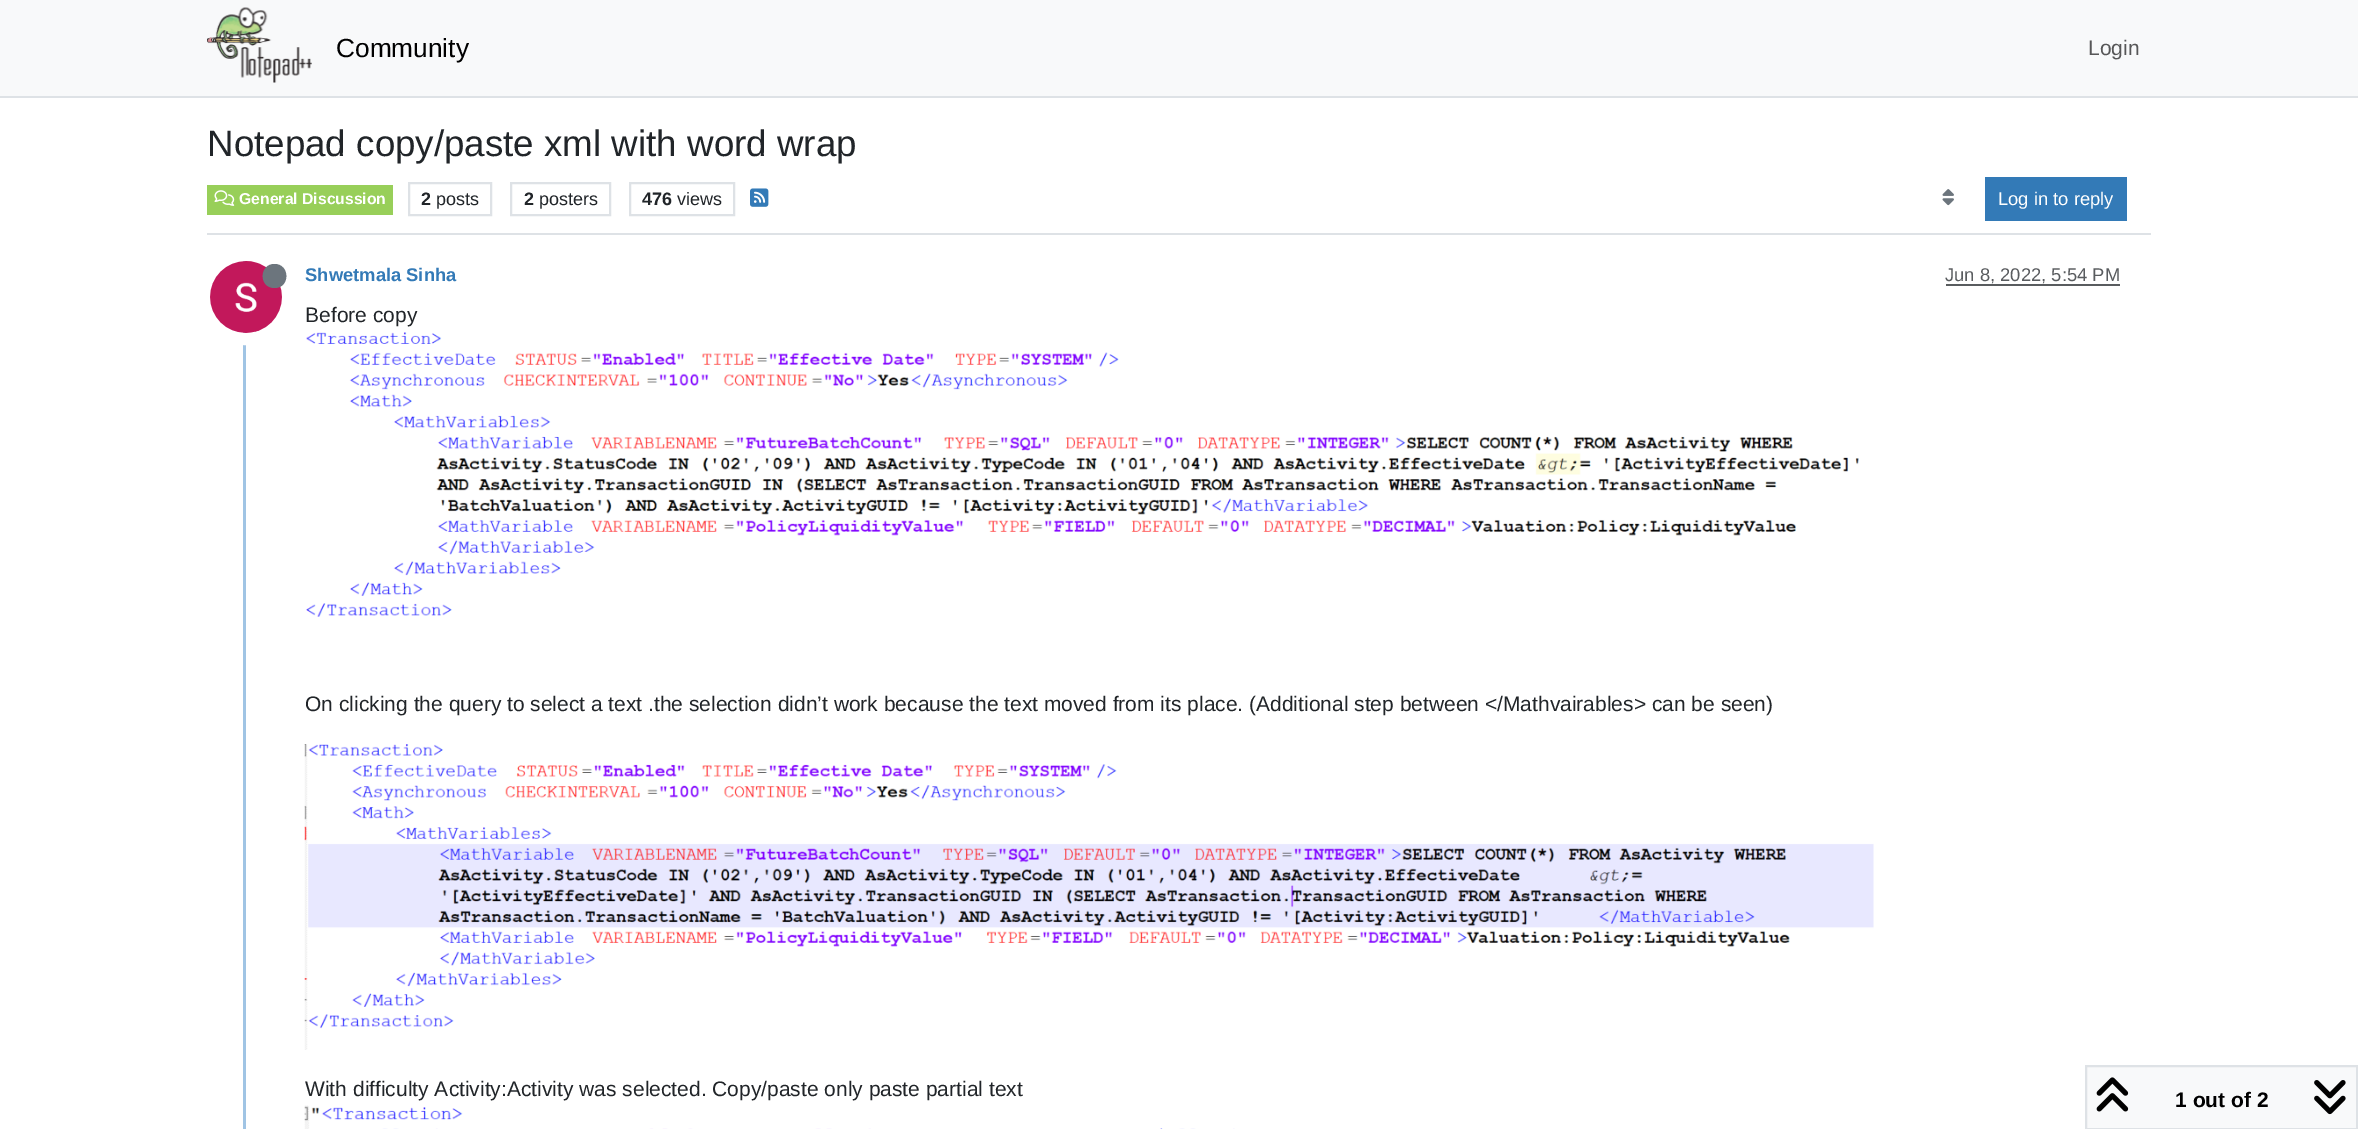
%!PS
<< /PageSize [2358 1129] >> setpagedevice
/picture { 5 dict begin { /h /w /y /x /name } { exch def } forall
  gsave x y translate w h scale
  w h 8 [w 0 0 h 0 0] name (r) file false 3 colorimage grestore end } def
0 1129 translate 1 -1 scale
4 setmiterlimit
1 setgray
0 0 2358 1129 rectfill
0.973 0.976 0.98 setrgbcolor
0 0 2358 96 rectfill
0.871 0.886 0.902 setrgbcolor
0 96 2358 2 rectfill
(img1.rgb) 207 7 105 76 picture
/LiberationSans-Regular [26.25 0 0 -26.25 0 0] selectfont
0 setgray
336 57 moveto (Community) show
/LiberationSans-Regular [21 0 0 -21 0 0] selectfont
0.341 0.341 0.345 setrgbcolor
2088 55 moveto (Login) show
0.871 0.886 0.902 setrgbcolor
207 233 1944 2 rectfill
/LiberationSans-Regular [36.75 0 0 -36.75 0 0] selectfont
0.129 0.145 0.161 setrgbcolor
207 156 moveto (Notepad copy/paste xml with word wrap) show
0.596 0.812 0.349 setrgbcolor
207 185 186 30 rectfill
(img2.rgb) 214 190 21 16 picture
/LiberationSans-Bold [15.75 0 0 -15.75 0 0] selectfont
1 setgray
239 204 moveto (General Discussion) show
0.871 0.886 0.902 setrgbcolor
2 setlinewidth
409 183 82 32 rectstroke
/LiberationSans-Bold [18 0 0 -18 0 0] selectfont
0.129 0.145 0.161 setrgbcolor
421 205 moveto (2) show
/LiberationSans-Regular [18 0 0 -18 0 0] selectfont
436 205 moveto (posts) show
0.871 0.886 0.902 setrgbcolor
511 183 99 32 rectstroke
/LiberationSans-Bold [18 0 0 -18 0 0] selectfont
0.129 0.145 0.161 setrgbcolor
524 205 moveto (2) show
/LiberationSans-Regular [18 0 0 -18 0 0] selectfont
539 205 moveto (posters) show
0.871 0.886 0.902 setrgbcolor
630 183 104 32 rectstroke
/LiberationSans-Bold [18 0 0 -18 0 0] selectfont
0.129 0.145 0.161 setrgbcolor
642 205 moveto (476) show
/LiberationSans-Regular [18 0 0 -18 0 0] selectfont
677 205 moveto (views) show
(img3.rgb) 750 188 19 19 picture
(img4.rgb) 1942 189 12 17 picture
0.2 0.478 0.718 setrgbcolor
1985 177 142 44 rectfill
/LiberationSans-Regular [18.4 0 0 -18.4 0 0] selectfont
1 setgray
1998 205 moveto (Log in to reply) show
0.627 0.769 0.894 setrgbcolor
243 258 3 871 rectfill
1 setgray
12 setlinewidth
newpath 246 297 42 0 360 arc closepath stroke
(img5.rgb) 210 261 72 72 picture
0.424 0.459 0.49 setrgbcolor
newpath 274.5 288 moveto 290.5 288 290 264 274.5 264 curveto 259 264 258.5 288 274.5 288 curveto closepath fill
/LiberationSans-Bold [18.4 0 0 -18.4 0 0] selectfont
0.2 0.478 0.718 setrgbcolor
305 281 moveto (Shwetmala Sinha) show
/LiberationSans-Regular [18.4 0 0 -18.4 0 0] selectfont
0.349 0.361 0.373 setrgbcolor
1945 281 moveto (Jun 8, 2022, 5:54 PM) show
1946 284 174 2 rectfill
/LiberationSans-Regular [21 0 0 -21 0 0] selectfont
0.129 0.145 0.161 setrgbcolor
305 322 moveto (Before copy) show
(img6.rgb) 306 332 1553 285 picture
305 711 moveto (On clicking the query to select a text .the selection didn’t work because the text moved from its place. \(Additional step between </Mathvairables> can be seen\)) show
(img7.rgb) 304 744 1570 306 picture
305 1096 moveto (With difficulty Activity:Activity was selected. Copy/paste only paste partial text) show
(img8.rgb) 304 1105 931 24 picture
0.973 0.976 0.98 setrgbcolor
newpath 2086 1066 moveto 2357 1066 lineto 2357 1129 lineto 2086 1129 lineto closepath gsave fill grestore
0.871 0.886 0.902 setrgbcolor
2 setlinewidth
stroke
(img9.rgb) 2096 1077 33 35 picture
/LiberationSans-Bold [21 0 0 -21 0 0] selectfont
0 setgray
2175 1107 moveto (1 out of 2) show
(img10.rgb) 2314 1080 32 35 picture
showpage
